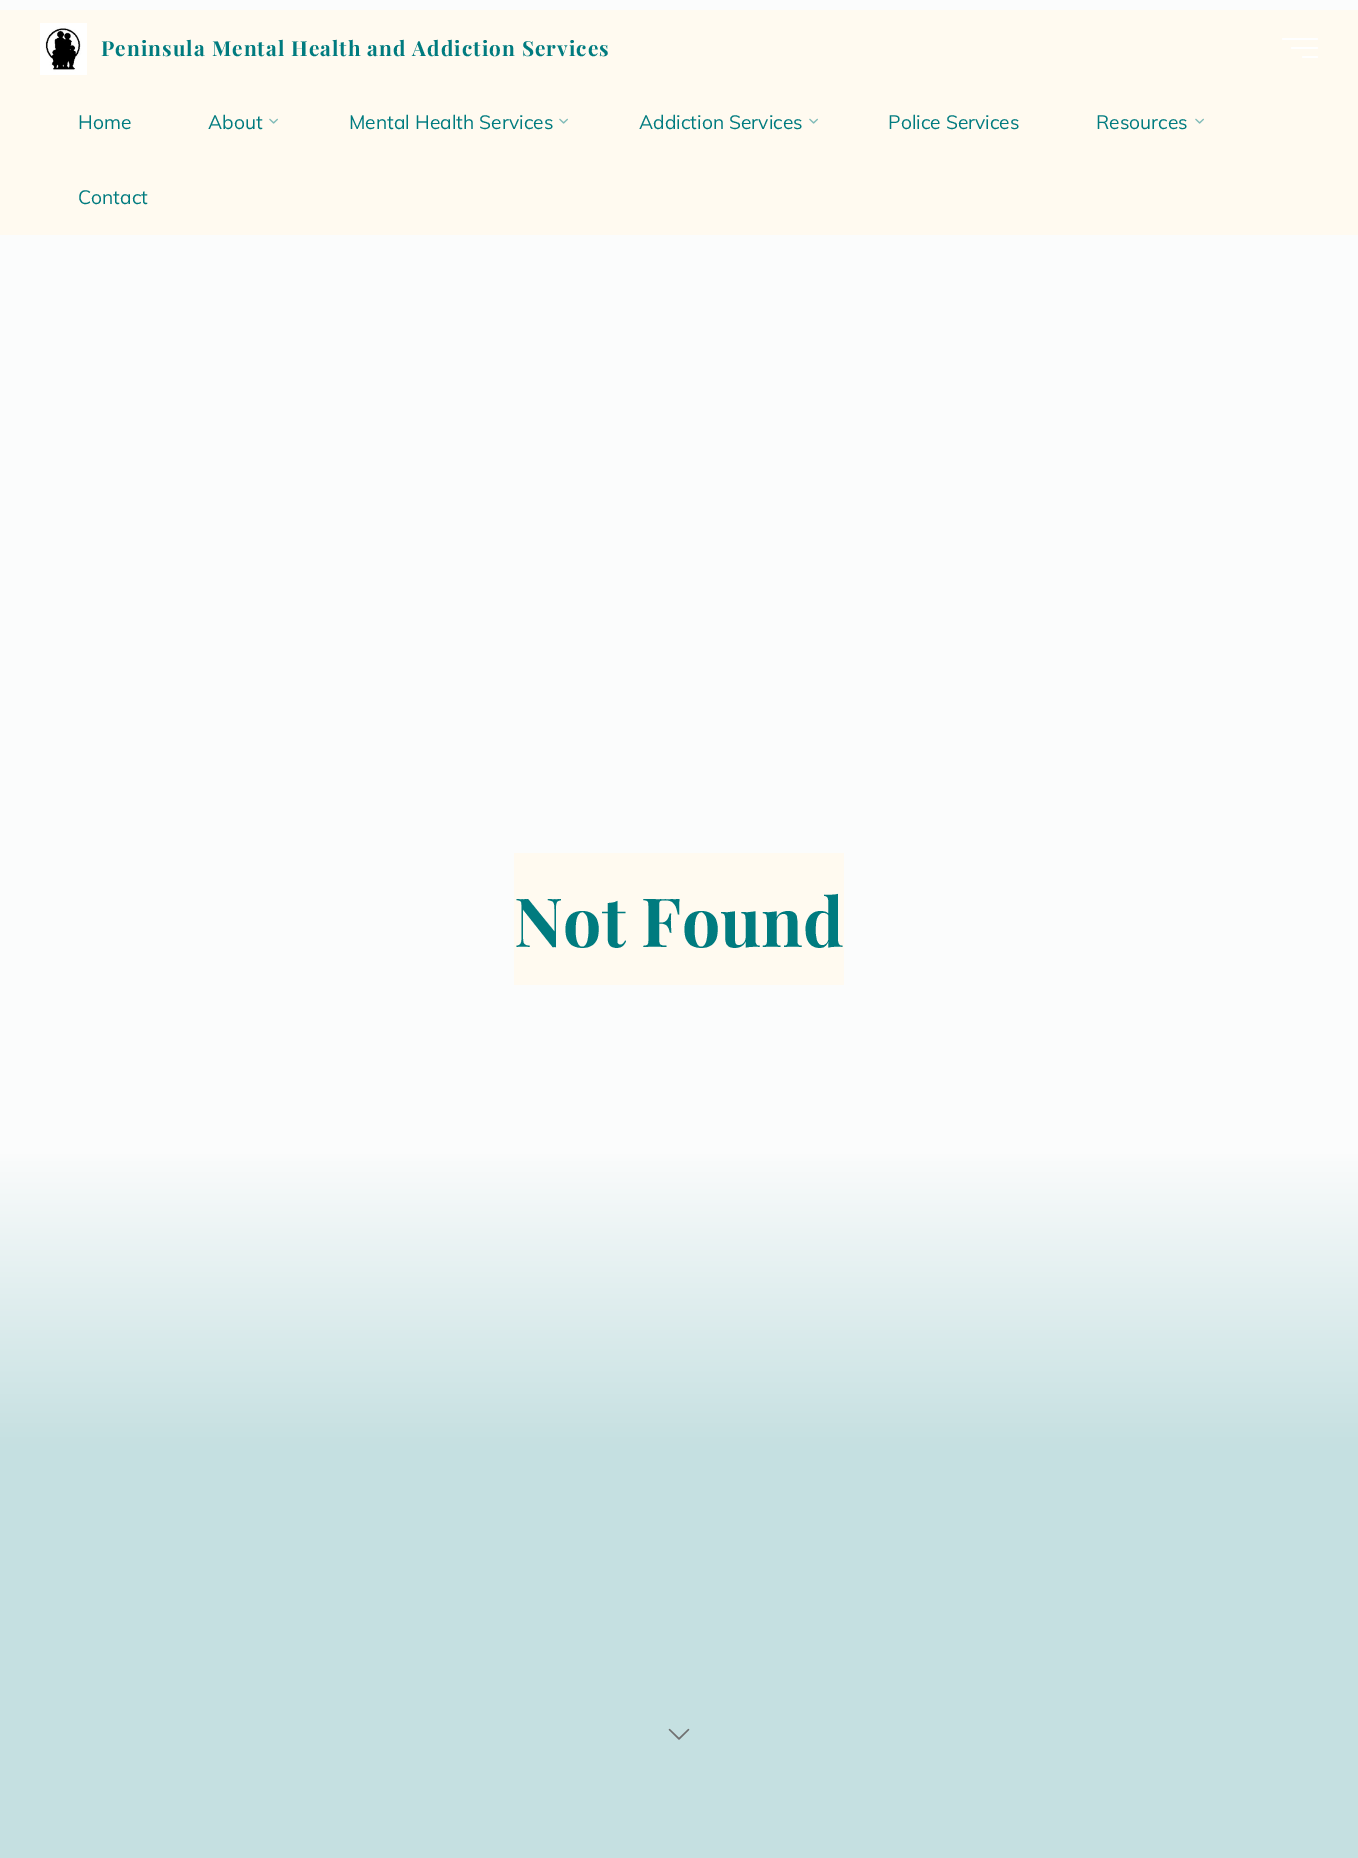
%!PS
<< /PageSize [1358 1858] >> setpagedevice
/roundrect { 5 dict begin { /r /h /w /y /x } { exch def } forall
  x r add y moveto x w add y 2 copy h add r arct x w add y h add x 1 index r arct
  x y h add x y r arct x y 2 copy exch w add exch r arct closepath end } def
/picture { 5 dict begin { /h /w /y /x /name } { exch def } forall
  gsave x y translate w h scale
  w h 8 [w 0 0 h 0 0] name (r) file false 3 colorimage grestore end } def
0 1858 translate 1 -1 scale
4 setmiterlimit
1 setgray
0 0 1358 1858 rectfill
gsave newpath 0 0 moveto 1358 0 lineto 1358 1858 lineto 0 1858 lineto closepath clip newpath
<< /ShadingType 2 /ColorSpace /DeviceRGB /Coords [679 0 679 1858] /Extend [true true] /Function << /FunctionType 3 /Domain [0 1] /Functions [<< /FunctionType 2 /Domain [0 1] /C0 [0.984 0.988 0.988] /C1 [0.984 0.988 0.988] /N 1 >> << /FunctionType 2 /Domain [0 1] /C0 [0.984 0.988 0.988] /C1 [0.773 0.878 0.882] /N 1 >> << /FunctionType 2 /Domain [0 1] /C0 [0.773 0.878 0.882] /C1 [0.773 0.878 0.882] /N 1 >>] /Bounds [0.62 0.78] /Encode [0 1 0 1 0 1] >> >> shfill grestore
1 0.98 0.941 setrgbcolor
0 10 1358 225 rectfill
(img1.rgb) 40 23 47 52 picture
/PlayfairDisplay-Bold [20.8 0 0 -20.8 0 0] selectfont
0 0.482 0.498 setrgbcolor
101 56 moveto 1.05 0 (Peninsula Mental Health and Addiction Services) ashow
1 setgray
1282 38 36 2 1 roundrect fill
1291 47 27 2 1 roundrect fill
1302 56 16 2 1 roundrect fill
/Muli-Regular [19.25 0 0 -19.25 0 0] selectfont
0 0.482 0.498 setrgbcolor
78 129 moveto (Home) show
208 129 moveto (About) show
(img2.rgb) 269 118 9 6 picture
349 129 moveto (Mental Health Services) show
(img2.rgb) 559 118 9 6 picture
639 129 moveto (Addiction Services) show
(img2.rgb) 809 118 9 6 picture
888 129 moveto (Police Services) show
1096 129 moveto (Resources) show
(img2.rgb) 1195 118 9 6 picture
78 204 moveto (Contact) show
1 0.98 0.941 setrgbcolor
514 853 330 132 rectfill
/PlayfairDisplay-Bold [68 0 0 -68 0 0] selectfont
0 0.482 0.498 setrgbcolor
514 947 moveto (Not Found) show
(img3.rgb) 668 1728 22 12 picture
showpage
